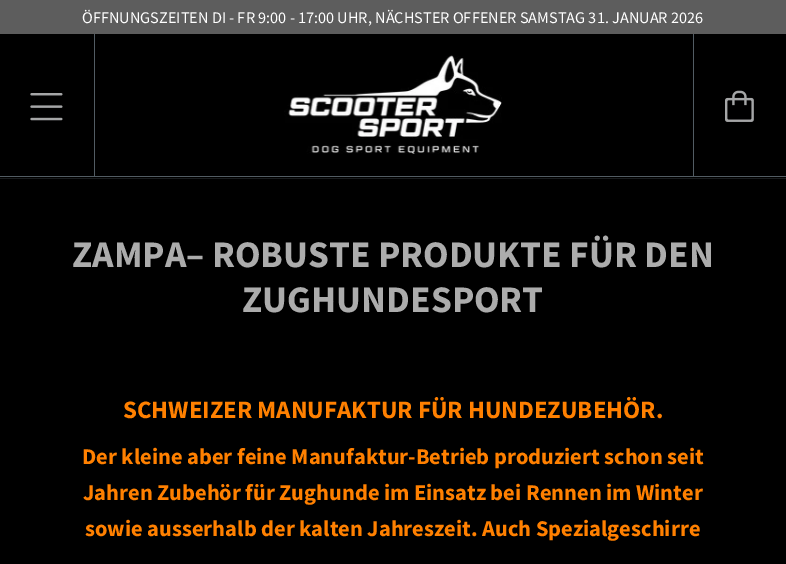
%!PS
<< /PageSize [786 564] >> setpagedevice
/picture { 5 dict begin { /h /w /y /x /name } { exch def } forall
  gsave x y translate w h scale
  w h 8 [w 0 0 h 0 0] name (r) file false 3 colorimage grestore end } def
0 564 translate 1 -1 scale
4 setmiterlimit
0 setgray
0 0 786 564 rectfill
0.098 0.11 0.118 setrgbcolor
0 178 786 1 rectfill
0.322 0.361 0.388 setrgbcolor
0 176 786 1 rectfill
0.365 setgray
0 0 786 34 rectfill
/SourceSansPro-Regular [16.25 0 0 -16.25 0 0] selectfont
1 setgray
82 23 moveto (ÖFFNUNGSZEITEN DI - FR 9:00 - 17:00 UHR, NÄCHSTER OFFENER SAMSTAG 31. JANUAR 2026) show
(img1.rgb) 30 93 33 28 picture
0.322 0.361 0.388 setrgbcolor
94 34 1 142 rectfill
(img2.rgb) 284 55 218 99 picture
693 34 1 142 rectfill
(img3.rgb) 725 90 29 32 picture
/SourceSansPro-Bold [37.5 0 0 -37.5 0 0] selectfont
0.675 setgray
72 267 moveto (ZAMPA– ROBUSTE PRODUKTE FÜR DEN) show
242 312 moveto (ZUGHUNDESPORT) show
/SourceSansPro-Bold [25 0 0 -25 0 0] selectfont
1 0.502 0 setrgbcolor
123 418 moveto (SCHWEIZER MANUFAKTUR FÜR HUNDEZUBEHÖR.) show
/SourceSansPro-Bold [22.5 0 0 -22.5 0 0] selectfont
82 464 moveto (Der kleine aber feine Manufaktur-Betrieb produziert schon seit) show
83 500 moveto (Jahren Zubehör für Zughunde im Einsatz bei Rennen im Winter) show
85 536 moveto (sowie ausserhalb der kalten Jahreszeit. Auch Spezialgeschirre) show
showpage
